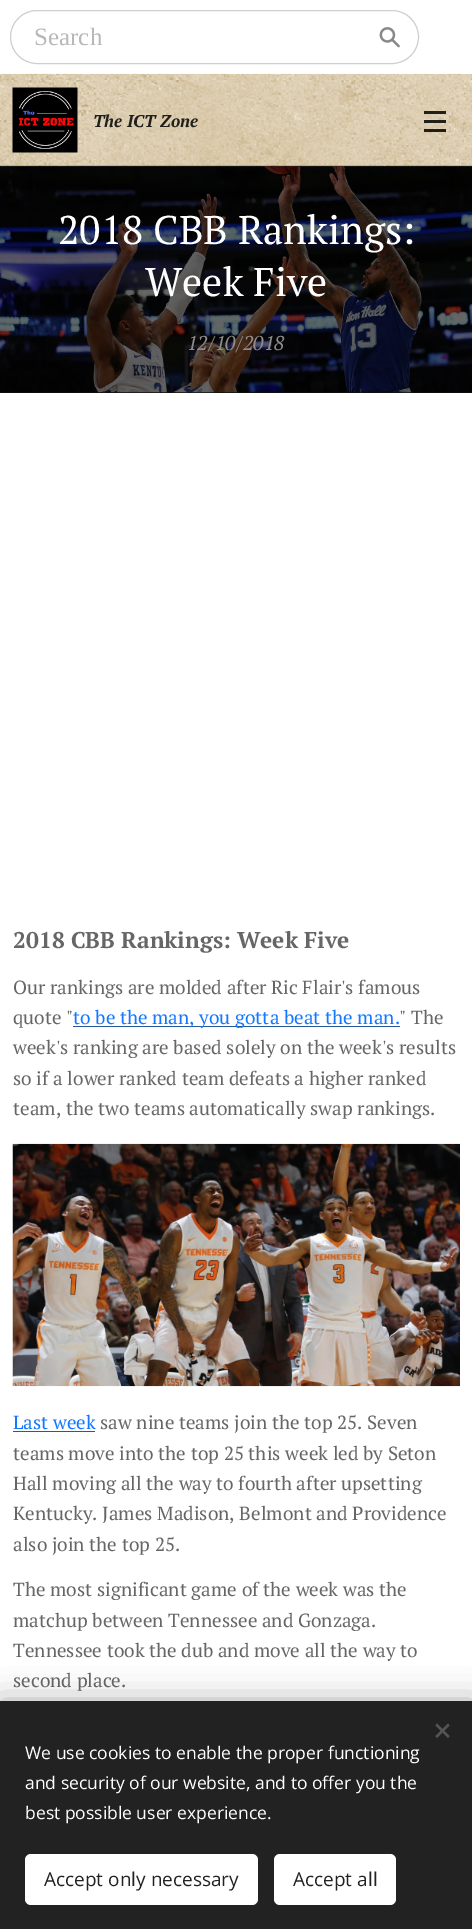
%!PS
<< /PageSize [472 1929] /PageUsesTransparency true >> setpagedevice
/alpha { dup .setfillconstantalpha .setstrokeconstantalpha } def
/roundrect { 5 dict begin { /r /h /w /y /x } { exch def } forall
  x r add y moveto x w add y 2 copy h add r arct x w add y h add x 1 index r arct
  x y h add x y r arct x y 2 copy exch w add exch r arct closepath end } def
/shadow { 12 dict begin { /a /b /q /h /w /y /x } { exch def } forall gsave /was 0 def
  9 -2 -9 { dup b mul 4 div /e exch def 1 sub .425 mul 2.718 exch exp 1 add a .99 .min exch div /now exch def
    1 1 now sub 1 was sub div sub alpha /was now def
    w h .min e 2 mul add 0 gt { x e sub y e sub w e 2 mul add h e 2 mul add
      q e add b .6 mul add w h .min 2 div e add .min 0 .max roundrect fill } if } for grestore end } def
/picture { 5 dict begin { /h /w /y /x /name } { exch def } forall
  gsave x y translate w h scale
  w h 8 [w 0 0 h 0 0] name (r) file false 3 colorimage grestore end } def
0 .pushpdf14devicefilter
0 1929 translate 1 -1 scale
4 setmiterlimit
1 setgray
0 0 472 1929 rectfill
0.812 setgray
10.5 10.5 408 53 26.5 roundrect stroke
/LiberationSerif-Regular [25 0 0 -25 0 0] selectfont
0.722 setgray
34 45 moveto (Search) show
(img1.rgb) 379 27 21 21 picture
0.063 setgray
0 166 472 227 rectfill
(img4.rgb) 0 166 472 227 picture
(img2.rgb) 0 73 472 94 picture
(img3.rgb) 12 87 66 66 picture
/PTSerif-BoldItalic [17 0 0 -17 0 0] selectfont
0.129 0.122 0.102 setrgbcolor
93 127 moveto (The ICT Zone) show
0.85 alpha
0 setgray
424 120 22 3 rectfill
424 111 22 3 rectfill
424 129 22 3 rectfill
0.15 alpha
0 165 472 1 rectfill
/PTSerif-Regular [40 0 0 -40 0 0] selectfont
1 alpha
1 setgray
58 244 moveto (2018 CBB Rankings:) show
145 296 moveto (Week Five) show
/PTSerif-Italic [20 0 0 -20 0 0] selectfont
0.565 0.549 0.553 setrgbcolor
187 350 moveto (12/10/2018) show
/PTSerif-Bold [22.75 0 0 -22.75 0 0] selectfont
0.4 setgray
13 948 moveto (2018 CBB Rankings: Week Five) show
/PTSerif-Regular [19 0 0 -19 0 0] selectfont
13 994 moveto (Our rankings are molded after Ric Flair's famous) show
13 1024 moveto (quote ") show
0.149 0.349 0.612 setrgbcolor
73 1026 327 1 rectfill
0.071 0.471 1 setrgbcolor
73 1024 moveto (to be the man, you gotta beat the man.) show
0.4 setgray
399 1024 moveto (" The) show
13 1054 moveto (week's ranking are based solely on the week's results) show
13 1085 moveto (so if a lower ranked team defeats a higher ranked) show
13 1115 moveto (team, the two teams automatically swap rankings.) show
(img5.rgb) 12 1143 448 244 picture
0.071 0.471 1 setrgbcolor
13 1429 moveto (Last week) show
0.149 0.349 0.612 setrgbcolor
13 1431 82 1 rectfill
0.4 setgray
100 1429 moveto (saw nine teams join the top 25. Seven) show
13 1460 moveto (teams move into the top 25 this week led by Seton) show
13 1490 moveto (Hall moving all the way to fourth after upsetting) show
13 1520 moveto (Kentucky. James Madison, Belmont and Providence) show
13 1551 moveto (also join the top 25.) show
13 1596 moveto (The most significant game of the week was the) show
13 1627 moveto (matchup between Tennessee and Gonzaga.) show
13 1657 moveto (Tennessee took the dub and move all the way to) show
13 1687 moveto (second place.) show
0 setgray
0 1701 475 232 0 15.5 0.33 shadow
0.133 setgray
0 1701 472 228 rectfill
0.333 setgray
newpath 435.5 1736 moveto 448 1723.5 lineto 449.5 1725.5 lineto 437 1738 lineto closepath fill
newpath 437 1723.5 moveto 449.5 1736 lineto 448 1738 lineto 435.5 1725.5 lineto closepath fill
/OpenSans-Regular [17.5 0 0 -17.5 0 0] selectfont
1 setgray
25 1759 moveto (We use cookies to enable the proper functioning) show
25 1789 moveto (and security of our website, and to offer you the) show
25 1819 moveto (best possible user experience.) show
25 1854 233 51 6 roundrect fill
/OpenSans-Regular [19 0 0 -19 0 0] selectfont
0.133 setgray
44 1886 moveto (Accept only necessary) show
1 setgray
274 1854 122 51 6 roundrect fill
0.133 setgray
293 1886 moveto (Accept all) show
.poppdf14devicefilter showpage
